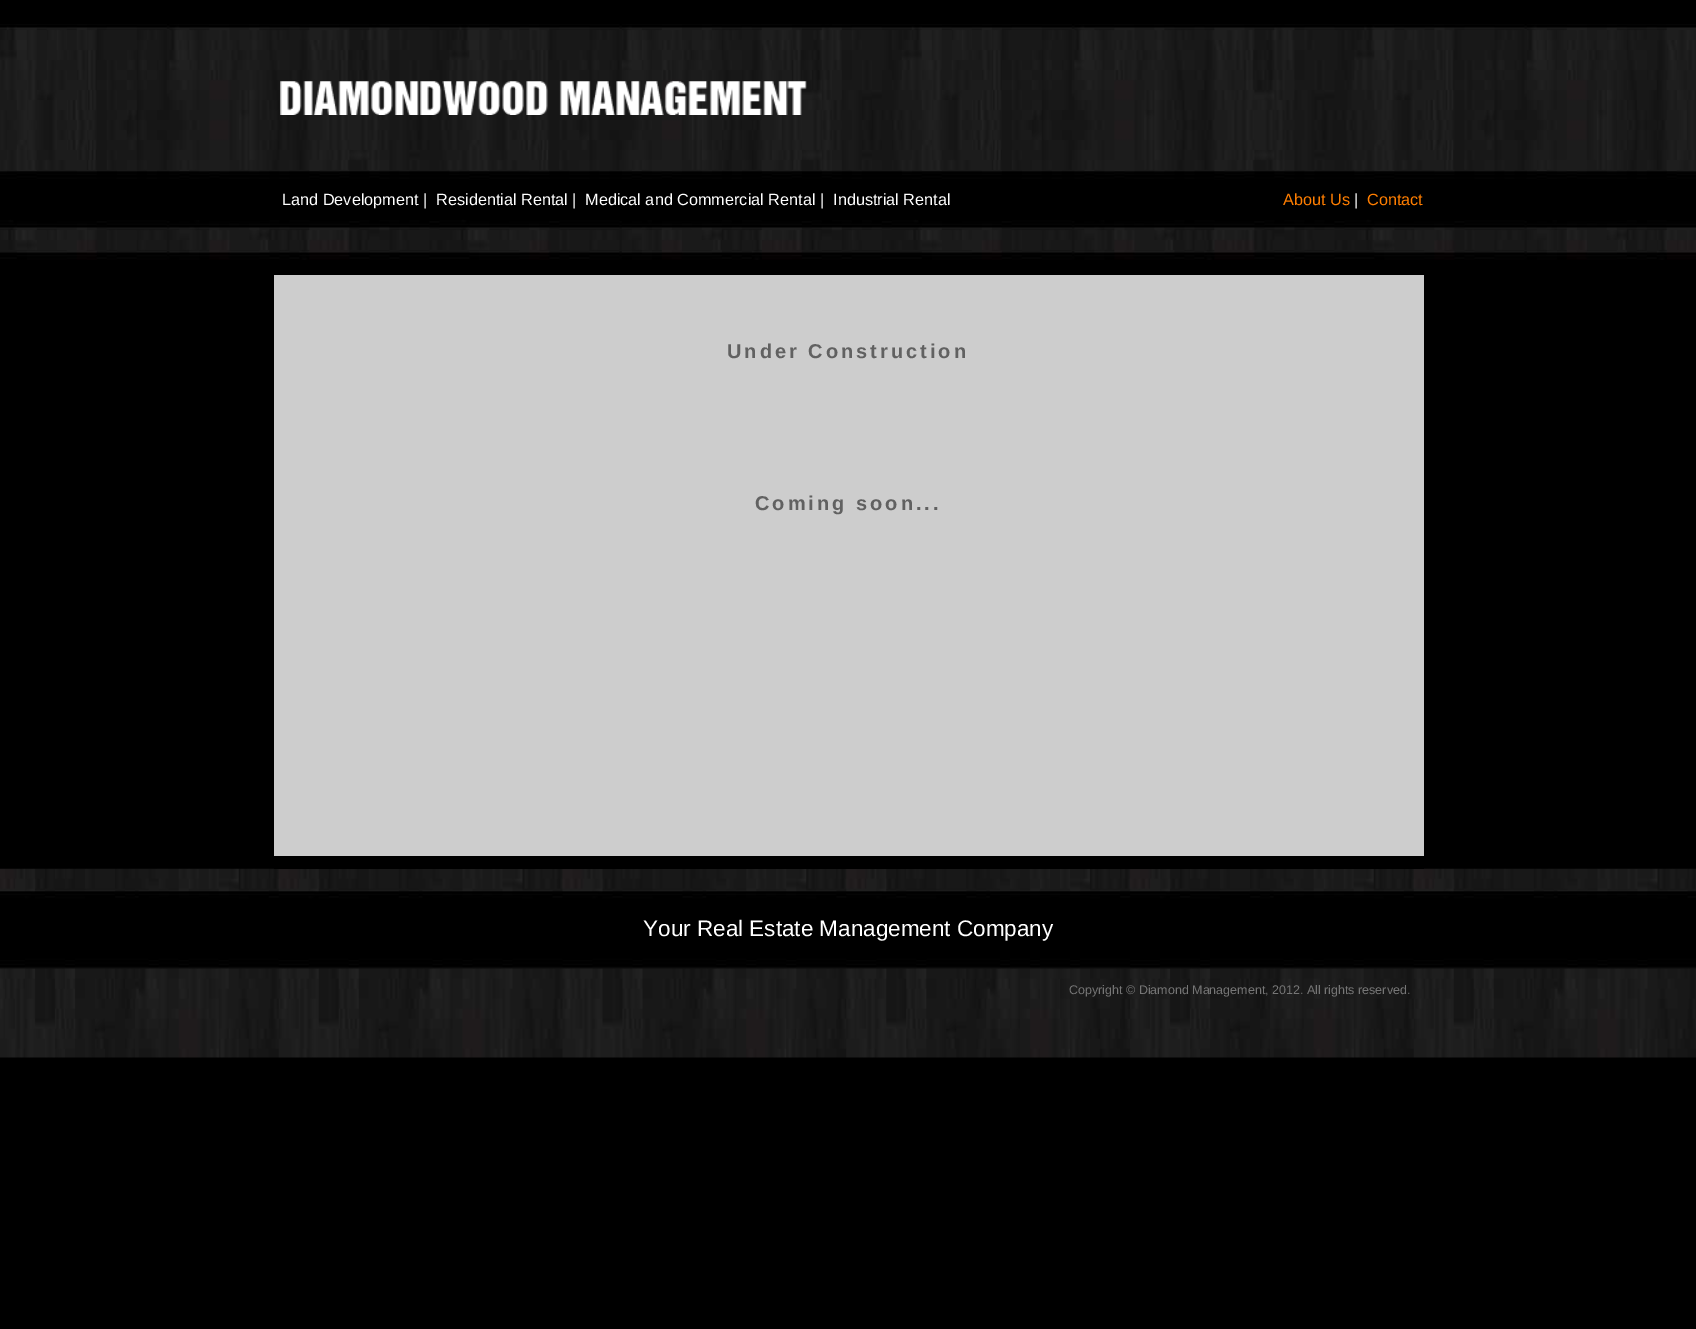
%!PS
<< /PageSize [1696 1329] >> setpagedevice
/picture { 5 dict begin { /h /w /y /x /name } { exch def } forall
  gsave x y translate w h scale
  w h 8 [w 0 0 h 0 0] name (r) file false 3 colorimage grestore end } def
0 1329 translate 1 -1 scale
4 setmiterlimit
0 setgray
0 0 1696 1329 rectfill
(img1.rgb) 0 24 1696 236 picture
(img2.rgb) 280 81 527 34 picture
/LiberationSans-Regular [16.25 0 0 -16.25 0 0] selectfont
1 setgray
282 205 moveto (Land Development |) show
436 205 moveto (Residential Rental |) show
585 205 moveto (Medical and Commercial Rental |) show
833 205 moveto (Industrial Rental) show
1 0.494 0 setrgbcolor
1283 205 moveto (About Us) show
1 setgray
1354 205 moveto (|) show
1 0.494 0 setrgbcolor
1367 205 moveto (Contact) show
0.804 setgray
274 275 1150 581 rectfill
(img3.rgb) 0 868 1696 190 picture
0 setgray
274 868 1150 1 rectfill
/LiberationSans-Bold [20 0 0 -20 0 0] selectfont
0.38 setgray
727 358 moveto 3 0 (Under Construction) ashow
755 510 moveto 3 0 (Coming soon...) ashow
/LiberationSans-Regular [22.5 0 0 -22.5 0 0] selectfont
1 setgray
643 936 moveto (Your Real Estate Management Company) show
/LiberationSans-Regular [12.5 0 0 -12.5 0 0] selectfont
0.463 setgray
1069 994 moveto (Copyright © Diamond Management, 2012. All rights reserved.) show
showpage
